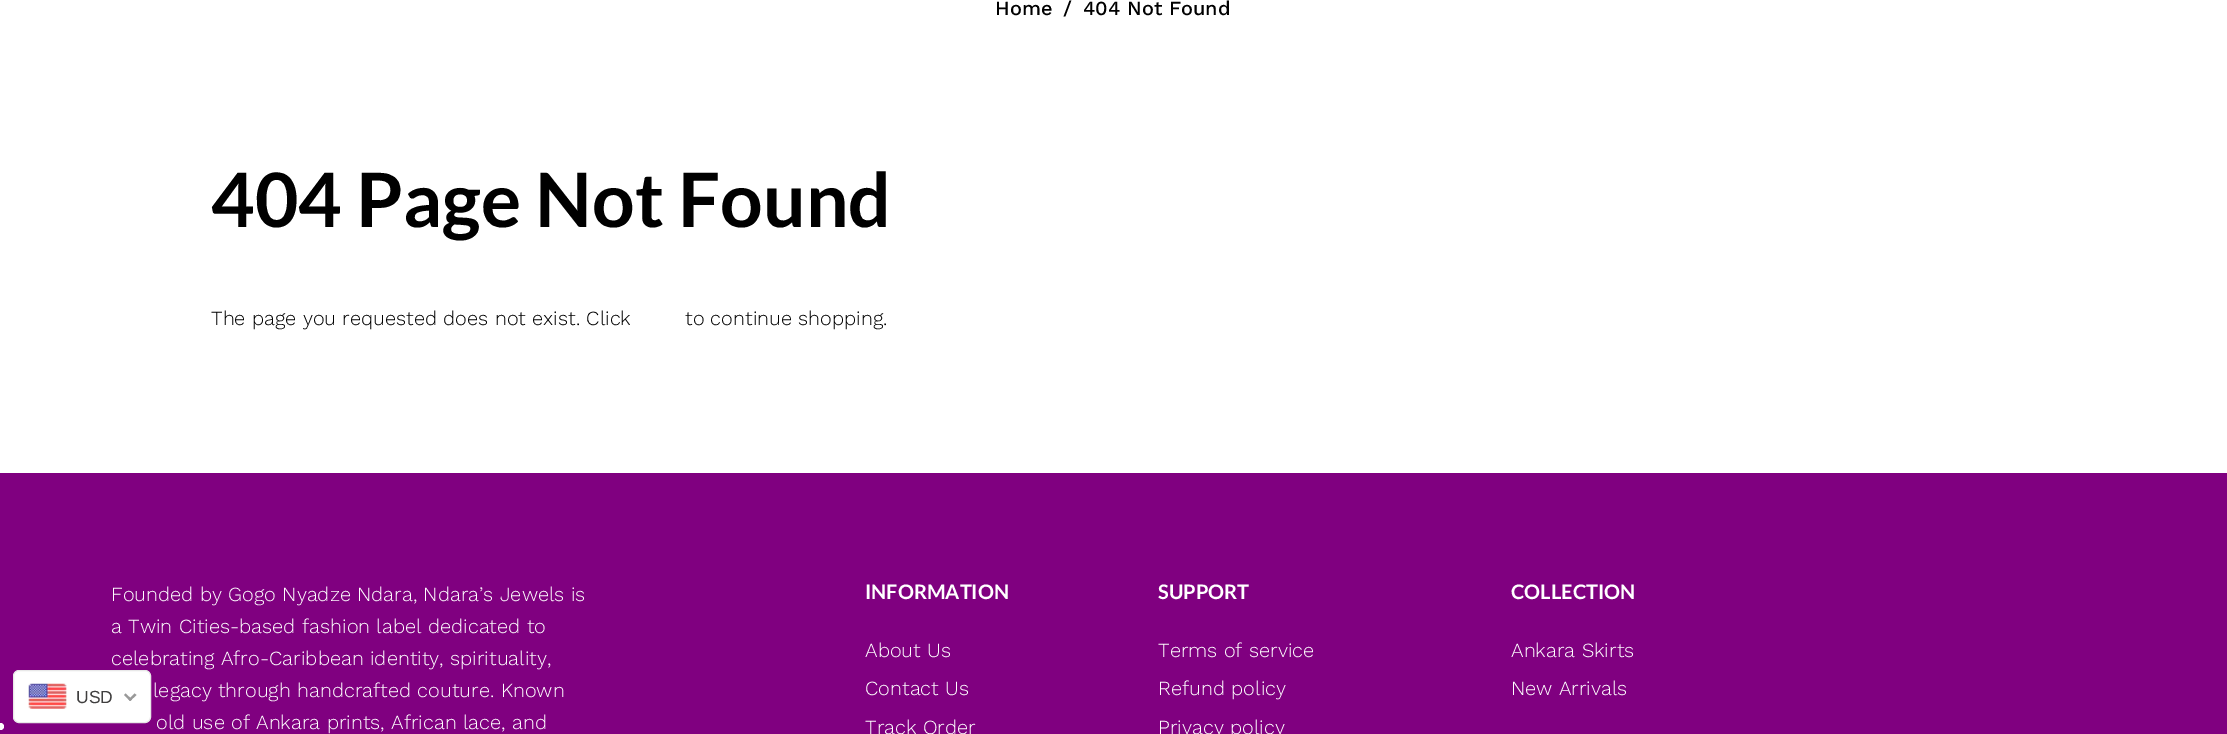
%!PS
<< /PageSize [2227 734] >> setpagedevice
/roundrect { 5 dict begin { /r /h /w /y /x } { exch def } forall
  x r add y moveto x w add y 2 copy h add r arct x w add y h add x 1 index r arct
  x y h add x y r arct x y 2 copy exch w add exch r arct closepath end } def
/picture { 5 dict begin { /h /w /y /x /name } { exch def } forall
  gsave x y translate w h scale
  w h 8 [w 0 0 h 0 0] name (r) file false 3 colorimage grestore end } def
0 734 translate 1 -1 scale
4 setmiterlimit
1 setgray
0 0 2227 734 rectfill
/WorkSans-Medium [20 0 0 -20 0 0] selectfont
0 setgray
995 15 moveto (Home) show
1063 15 moveto (/) show
1083 15 moveto (404 Not Found) show
/Lato-Bold [75 0 0 -75 0 0] selectfont
211 227 moveto (404 Page Not Found) show
/WorkSans-Light [20 0 0 -20 0 0] selectfont
211 325 moveto (The page you requested does not exist. Click) show
685 325 moveto (to continue shopping.) show
0.502 0 0.502 setrgbcolor
0 473 2227 261 rectfill
1 setgray
13.5 670.5 137 52 5.5 roundrect gsave fill grestore
0.91 setgray
stroke
(img1.rgb) 28 683 39 26 picture
/LiberationSans-Regular [17.5 0 0 -17.5 0 0] selectfont
0.251 0.247 0.247 setrgbcolor
76 703 moveto (USD) show
0.6 setgray
newpath 134.5 693.5 moveto 136.5 695 lineto 130 701 lineto 128.5 699.5 lineto closepath fill
newpath 125.5 693.5 moveto 132 699.5 lineto 130 701 lineto 124 695 lineto closepath fill
/WorkSans-Light [20 0 0 -20 0 0] selectfont
1 setgray
111 601 moveto (Founded by Gogo Nyadze Ndara, Ndara’s Jewels is) show
111 633 moveto (a Twin Cities-based fashion label dedicated to) show
111 665 moveto (celebrating Afro-Caribbean identity, spirituality,) show
153 697 moveto (legacy through handcrafted couture. Known) show
156 729 moveto (old use of Ankara prints, African lace, and) show
/Lato-Bold [20 0 0 -20 0 0] selectfont
865 599 moveto (INFORMATION) show
/WorkSans-Light [20 0 0 -20 0 0] selectfont
865 657 moveto (About Us) show
865 695 moveto (Contact Us) show
865 734 moveto (Track Order) show
/Lato-Bold [20 0 0 -20 0 0] selectfont
1158 599 moveto (SUPPORT) show
/WorkSans-Light [20 0 0 -20 0 0] selectfont
1158 657 moveto (Terms of service) show
1158 695 moveto (Refund policy) show
1158 734 moveto (Privacy policy) show
/Lato-Bold [20 0 0 -20 0 0] selectfont
1511 599 moveto (COLLECTION) show
/WorkSans-Light [20 0 0 -20 0 0] selectfont
1511 657 moveto (Ankara Skirts) show
1511 695 moveto (New Arrivals) show
-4 723 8 7 3.5 roundrect fill
showpage
